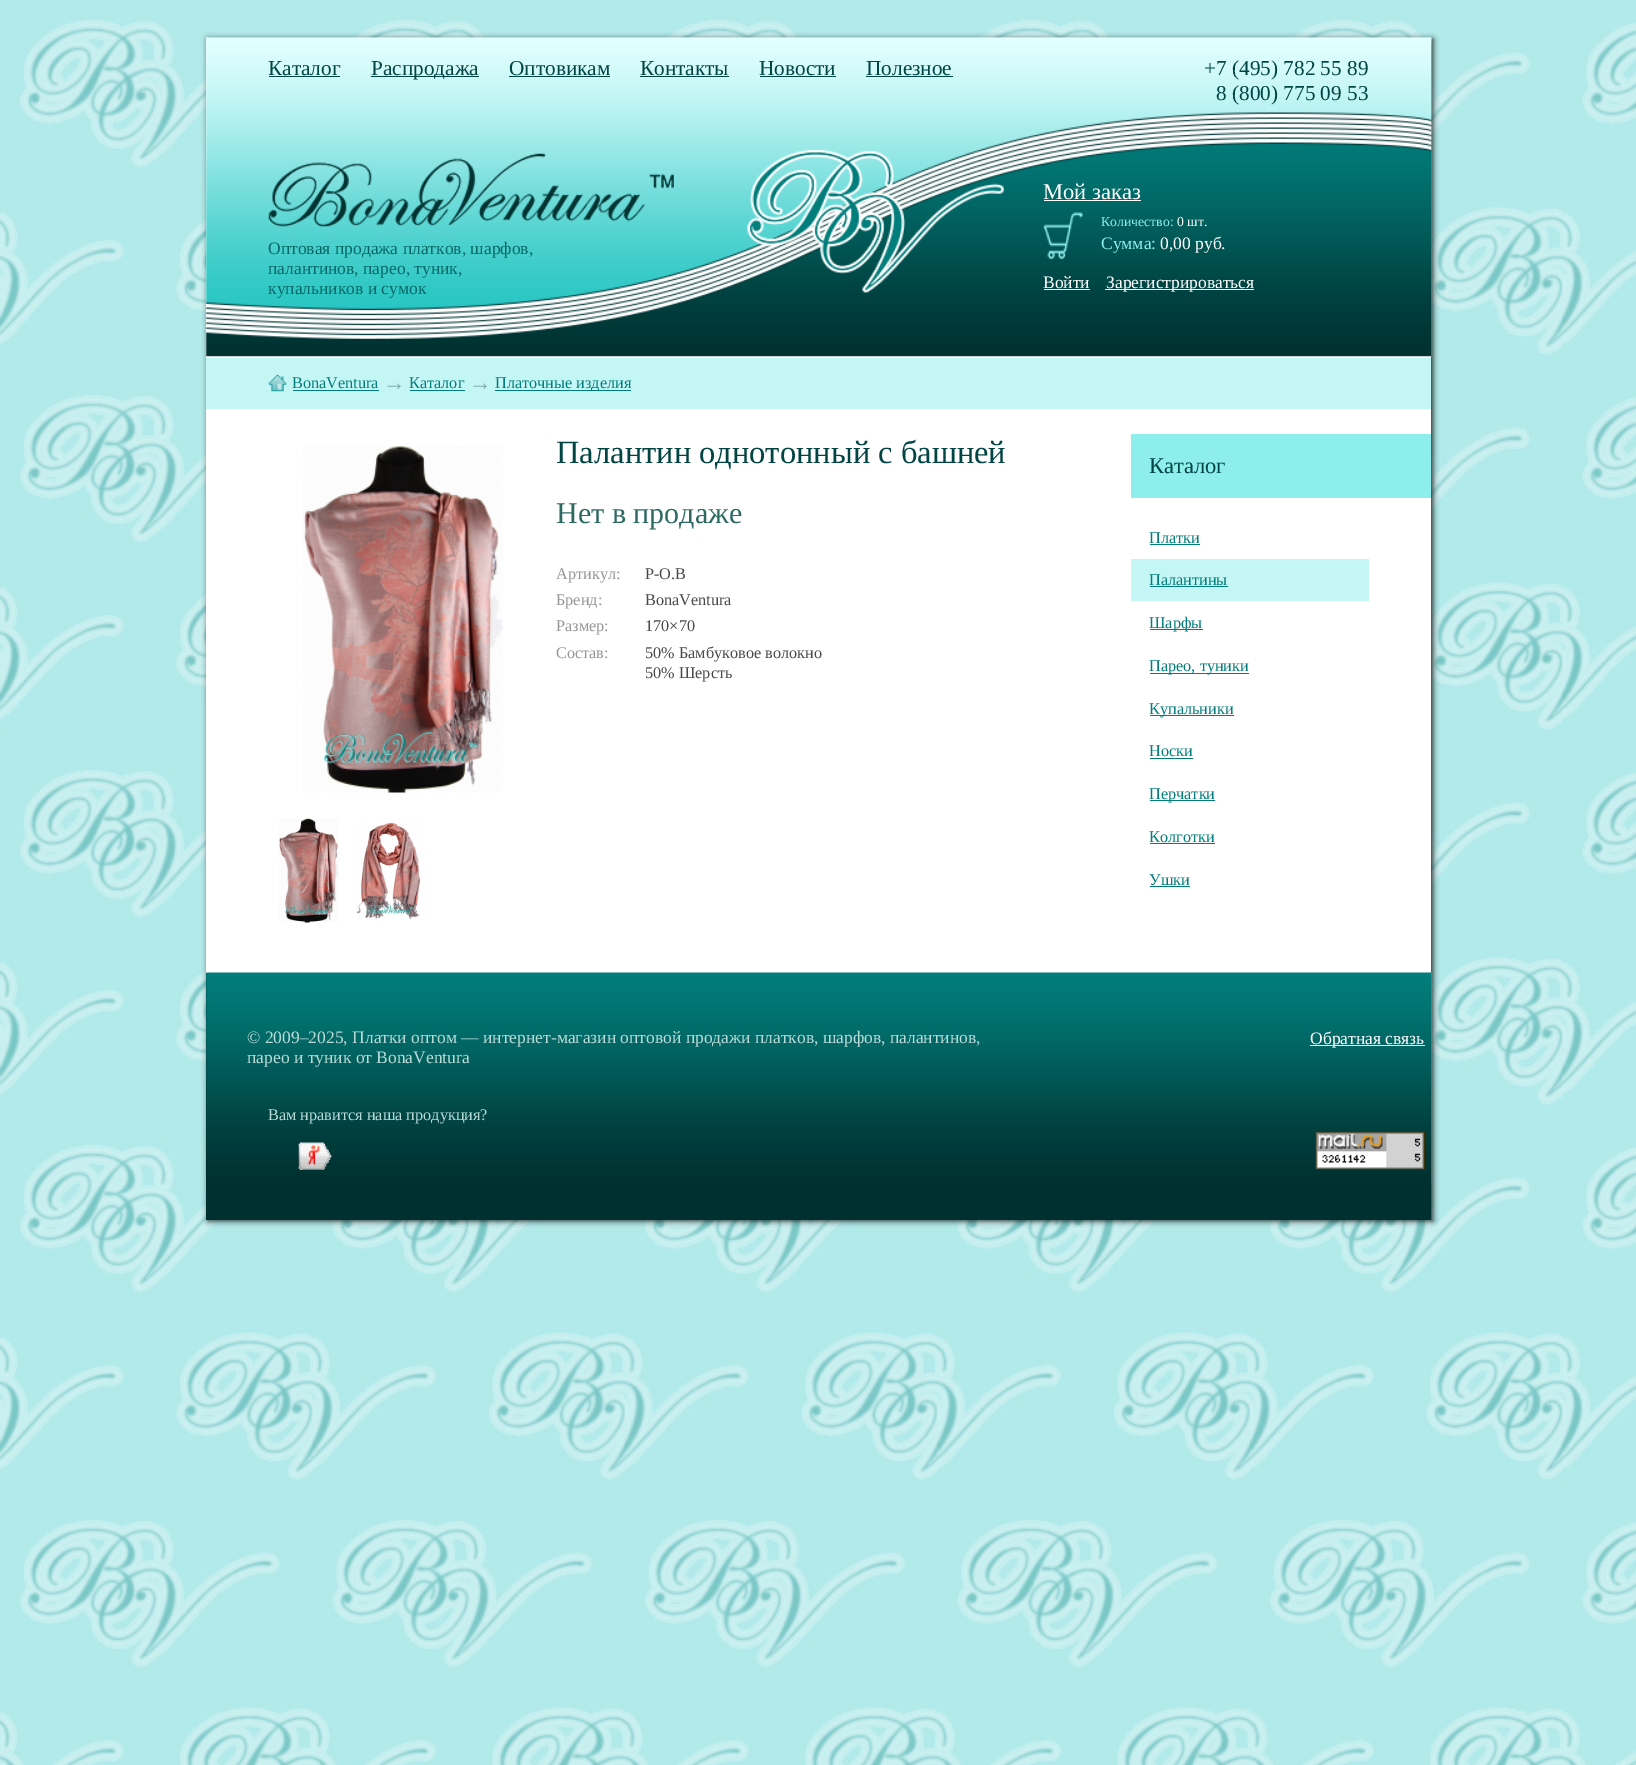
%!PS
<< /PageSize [1636 1765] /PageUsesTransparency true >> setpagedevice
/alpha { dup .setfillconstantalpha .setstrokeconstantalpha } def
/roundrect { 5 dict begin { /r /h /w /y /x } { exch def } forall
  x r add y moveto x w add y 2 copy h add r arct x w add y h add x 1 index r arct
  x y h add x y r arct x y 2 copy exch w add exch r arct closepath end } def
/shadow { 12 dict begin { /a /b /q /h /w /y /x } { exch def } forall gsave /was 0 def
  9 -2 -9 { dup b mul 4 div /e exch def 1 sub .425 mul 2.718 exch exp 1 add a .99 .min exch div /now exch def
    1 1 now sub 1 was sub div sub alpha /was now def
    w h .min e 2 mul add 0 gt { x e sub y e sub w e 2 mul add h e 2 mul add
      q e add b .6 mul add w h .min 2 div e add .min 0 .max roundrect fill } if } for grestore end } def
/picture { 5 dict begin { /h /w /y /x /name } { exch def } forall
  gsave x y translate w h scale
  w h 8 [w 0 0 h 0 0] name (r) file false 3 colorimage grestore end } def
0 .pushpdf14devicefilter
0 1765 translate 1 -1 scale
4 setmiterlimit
1 setgray
0 0 1636 1765 rectfill
(img1.rgb) 0 0 1636 1765 picture
0 setgray
208 39 1225 1182 0 3 0.85 shadow
1 setgray
206 38 1225 935 rectfill
(img2.rgb) 206 37 1226 320 picture
/LiberationSerif-Regular [21.25 0 0 -21.25 0 0] selectfont
0 0.271 0.267 setrgbcolor
268 75 moveto (Каталог) show
269 76 71 1 rectfill
371 76 108 1 rectfill
371 75 moveto (Распродажа) show
509 75 moveto (Оптовикам) show
509 76 101 1 rectfill
640 75 moveto (Контакты) show
640 76 89 1 rectfill
759 75 moveto (Новости) show
760 76 76 1 rectfill
866 75 moveto (Полезное) show
866 76 87 1 rectfill
1204 75 moveto (+7 \(495\) 782 55 89) show
1216 100 moveto (8 \(800\) 775 09 53) show
(img3.rgb) 268 153 406 74 picture
/LiberationSerif-Regular [17.5 0 0 -17.5 0 0] selectfont
0.027 0.408 0.4 setrgbcolor
268 254 moveto (Оптовая продажа платков, шарфов,) show
268 274 moveto (палантинов, парео, туник,) show
268 294 moveto (купальников и сумок) show
/LiberationSerif-Regular [22.5 0 0 -22.5 0 0] selectfont
1 setgray
1043 199 moveto (Мой заказ) show
1044 200 97 1 rectfill
(img4.rgb) 1043 212 40 47 picture
/LiberationSerif-Regular [13.75 0 0 -13.75 0 0] selectfont
0.557 0.933 0.925 setrgbcolor
1101 226 moveto (Количество:) show
1 setgray
1177 226 moveto (0 шт.) show
/LiberationSerif-Regular [17.5 0 0 -17.5 0 0] selectfont
0.557 0.933 0.925 setrgbcolor
1101 249 moveto (Сумма:) show
1 setgray
1160 249 moveto (0,00 руб.) show
1043 288 moveto (Войти) show
1044 289 46 1 rectfill
1105 289 149 1 rectfill
1106 288 moveto (Зарегистрироваться) show
0.769 0.965 0.961 setrgbcolor
206 358 1225 51 rectfill
(img5.rgb) 268 375 19 17 picture
/LiberationSerif-Regular [16.25 0 0 -16.25 0 0] selectfont
0.004 0.49 0.482 setrgbcolor
292 388 moveto (BonaVentura) show
293 390 86 1 rectfill
/LiberationSerif-Regular [22.5 0 0 -22.5 0 0] selectfont
0.506 0.663 0.659 setrgbcolor
383 390 moveto (→) show
/LiberationSerif-Regular [16.25 0 0 -16.25 0 0] selectfont
0.004 0.49 0.482 setrgbcolor
409 388 moveto (Каталог) show
410 390 55 1 rectfill
/LiberationSerif-Regular [22.5 0 0 -22.5 0 0] selectfont
0.506 0.663 0.659 setrgbcolor
469 390 moveto (→) show
0.004 0.49 0.482 setrgbcolor
495 390 136 1 rectfill
/LiberationSerif-Regular [16.25 0 0 -16.25 0 0] selectfont
495 388 moveto (Платочные изделия) show
(img6.rgb) 303 446 200 347 picture
(img7.rgb) 279 818 60 105 picture
(img8.rgb) 356 822 69 98 picture
/LiberationSerif-Regular [32.5 0 0 -32.5 0 0] selectfont
0 0.271 0.267 setrgbcolor
556 463 moveto (Палантин однотонный с башней) show
/LiberationSerif-Regular [30 0 0 -30 0 0] selectfont
0.173 0.412 0.38 setrgbcolor
556 523 moveto (Нет в продаже) show
/LiberationSerif-Regular [16.25 0 0 -16.25 0 0] selectfont
0.584 setgray
556 579 moveto (Артикул:) show
0.282 setgray
645 579 moveto (P-O.B) show
0.584 setgray
556 605 moveto (Бренд:) show
0.282 setgray
645 605 moveto (BonaVentura) show
0.584 setgray
556 631 moveto (Размер:) show
0.282 setgray
645 631 moveto (170×70) show
0.584 setgray
556 658 moveto (Состав:) show
0.282 setgray
645 658 moveto (50% Бамбуковое волокно) show
645 678 moveto (50% Шерсть) show
0.557 0.933 0.925 setrgbcolor
1131 434 300 64 rectfill
/LiberationSerif-Regular [22.5 0 0 -22.5 0 0] selectfont
0 0.271 0.267 setrgbcolor
1149 473 moveto (Каталог) show
/LiberationSerif-Regular [16.25 0 0 -16.25 0 0] selectfont
0.004 0.49 0.482 setrgbcolor
1149 543 moveto (Платки) show
1150 544 50 1 rectfill
0.769 0.965 0.961 setrgbcolor
1131 559 238 42 rectfill
0.004 0.49 0.482 setrgbcolor
1149 585 moveto (Палантины) show
1150 586 78 1 rectfill
1150 629 53 1 rectfill
1149 628 moveto (Шарфы) show
1150 673 99 1 rectfill
1149 671 moveto (Парео, туники) show
1150 715 84 1 rectfill
1149 714 moveto (Купальники) show
1149 756 moveto (Носки) show
1150 758 43 1 rectfill
1150 800 65 1 rectfill
1149 799 moveto (Перчатки) show
1149 842 moveto (Колготки) show
1150 843 65 1 rectfill
1149 885 moveto (Ушки) show
1150 886 40 1 rectfill
0 0.192 0.188 setrgbcolor
206 973 1225 247 rectfill
(img9.rgb) 206 972 1226 211 picture
/LiberationSerif-Regular [17.5 0 0 -17.5 0 0] selectfont
0.722 0.859 0.843 setrgbcolor
247 1043 moveto (© 2009–2025, Платки оптом — интернет-магазин оптовой продажи платков, шарфов, палантинов,) show
247 1063 moveto (парео и туник от BonaVentura) show
1 setgray
1310 1045 115 1 rectfill
1310 1044 moveto (Обратная связь) show
/LiberationSerif-Regular [16.25 0 0 -16.25 0 0] selectfont
0.722 0.859 0.843 setrgbcolor
268 1120 moveto (Вам нравится наша продукция?) show
(img10.rgb) 298 1142 34 28 picture
(img11.rgb) 1315 1131 110 39 picture
.poppdf14devicefilter showpage
